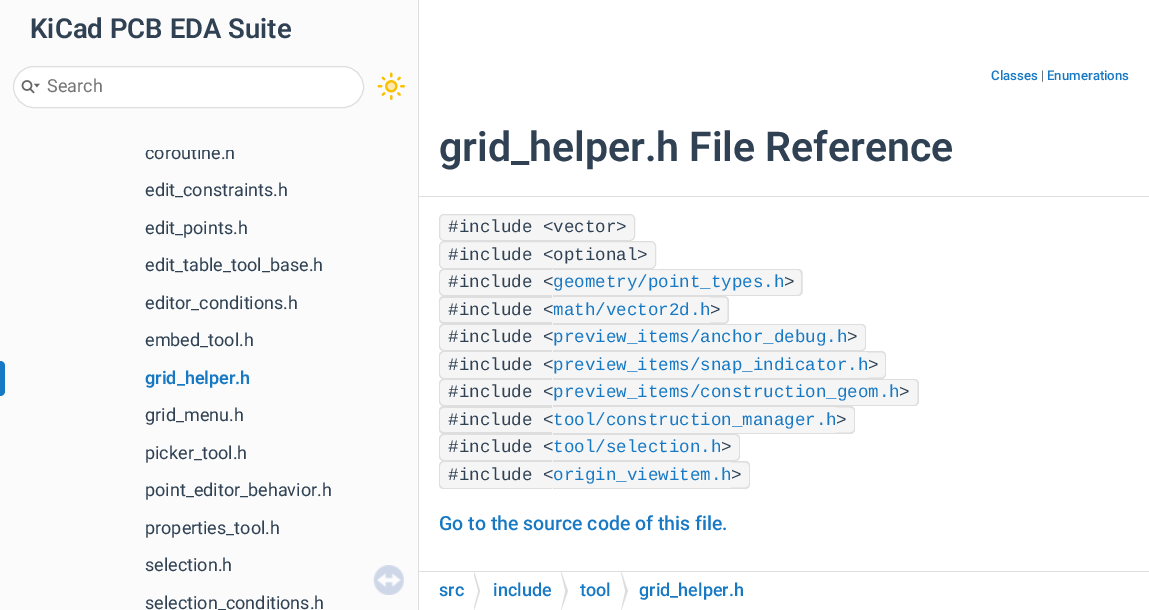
%!PS
<< /PageSize [1149 610] >> setpagedevice
/roundrect { 5 dict begin { /r /h /w /y /x } { exch def } forall
  x r add y moveto x w add y 2 copy h add r arct x w add y h add x 1 index r arct
  x y h add x y r arct x y 2 copy exch w add exch r arct closepath end } def
/picture { 5 dict begin { /h /w /y /x /name } { exch def } forall
  gsave x y translate w h scale
  w h 8 [w 0 0 h 0 0] name (r) file false 3 colorimage grestore end } def
0 610 translate 1 -1 scale
4 setmiterlimit
1 setgray
0 0 1149 610 rectfill
0.984 setgray
0 0 418 610 rectfill
/Roboto-SemiBold [27.5 0 0 -27.5 0 0] selectfont
0.184 0.255 0.325 setrgbcolor
30 38 moveto (KiCad PCB EDA Suite) show
1 setgray
13.5 66.5 350 41 20.5 roundrect gsave fill grestore
0.871 setgray
stroke
(img1.rgb) 21 80 19 14 picture
/Roboto-Regular [18 0 0 -18 0 0] selectfont
0.459 setgray
47 92 moveto (Search) show
(img2.rgb) 377 72 28 28 picture
gsave
0 150 419 460 rectclip
0.184 0.255 0.325 setrgbcolor
145 159 moveto (coroutine.h) show
grestore
0.184 0.255 0.325 setrgbcolor
145 196 moveto (edit_constraints.h) show
145 234 moveto (edit_points.h) show
145 271 moveto (edit_table_tool_base.h) show
145 309 moveto (editor_conditions.h) show
145 346 moveto (embed_tool.h) show
0.09 0.475 0.769 setrgbcolor
newpath 0 361 moveto 3 361 5 363 5 366 curveto 5 391 lineto 5 394 3 396 0 396 curveto closepath fill
/Roboto-SemiBold [18 0 0 -18 0 0] selectfont
145 384 moveto (grid_helper.h) show
/Roboto-Regular [18 0 0 -18 0 0] selectfont
0.184 0.255 0.325 setrgbcolor
145 421 moveto (grid_menu.h) show
145 459 moveto (picker_tool.h) show
145 496 moveto (point_editor_behavior.h) show
145 534 moveto (properties_tool.h) show
145 571 moveto (selection.h) show
145 609 moveto (selection_conditions.h) show
(img3.rgb) 373 565 31 30 picture
0.871 setgray
newpath 418 -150 moveto 418 150 lineto 419 150 lineto 419 310 lineto 419 -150 lineto closepath fill
418 150 1 460 rectfill
419 196 730 1 rectfill
/Roboto-Medium [13.25 0 0 -13.25 0 0] selectfont
0.09 0.475 0.769 setrgbcolor
991 80 moveto (Classes) show
/Roboto-Regular [13.25 0 0 -13.25 0 0] selectfont
0.184 0.255 0.325 setrgbcolor
1041 80 moveto (|) show
/Roboto-Medium [13.25 0 0 -13.25 0 0] selectfont
0.09 0.475 0.769 setrgbcolor
1047 80 moveto (Enumerations) show
/Roboto-SemiBold [41 0 0 -41 0 0] selectfont
0.184 0.255 0.325 setrgbcolor
439 161 moveto (grid_helper.h File Reference) show
0.961 setgray
439.5 214.5 195 26 4.5 roundrect gsave fill grestore
0.871 setgray
stroke
/LiberationMono-Regular [17.5 0 0 -17.5 0 0] selectfont
0.184 0.255 0.325 setrgbcolor
448 232 moveto (#include <vector>) show
0.961 setgray
439.5 241.5 216 27 4.5 roundrect gsave fill grestore
0.871 setgray
stroke
0.184 0.255 0.325 setrgbcolor
448 260 moveto (#include <optional>) show
0.961 setgray
newpath 444 269 moveto 553 269 lineto 553 296 lineto 444 296 lineto 441 296 439 294 439 291 curveto 439 274 lineto 439 271 441 269 444 269 curveto closepath fill
0.871 setgray
newpath 444 269 moveto 552 269 lineto 552 296 lineto 444 296 lineto 441 296 439 294 439 291 curveto 439 274 lineto 439 271 441 269 444 269 curveto closepath 444 270 moveto 552 270 lineto 552 295 lineto 444 295 lineto 442 295 440 293 440 291 curveto 440 274 lineto 440 272 442 270 444 270 curveto closepath eofill
0.184 0.255 0.325 setrgbcolor
448 287 moveto (#include <) show
0.961 setgray
553 270 231 25 rectfill
0.09 0.475 0.769 setrgbcolor
553 287 moveto (geometry/point_types.h) show
0.871 setgray
553 295 231 1 rectfill
0.961 setgray
newpath 784 269 moveto 798 269 lineto 801 269 803 271 803 274 curveto 803 291 lineto 803 294 801 296 798 296 curveto 784 296 lineto closepath fill
0.871 setgray
newpath 784 269 moveto 797.5 269 lineto 800.5 269 802.5 271 802.5 274 curveto 802.5 291 lineto 802.5 294 800.5 296 797.5 296 curveto 784 296 lineto closepath 784 270 moveto 797.5 270 lineto 799.5 270 801 271.5 801 274 curveto 801 291 lineto 801 293.5 799.5 295 797.5 295 curveto 784 295 lineto closepath eofill
0.184 0.255 0.325 setrgbcolor
784 287 moveto (>) show
0.871 setgray
553 269 231 1 rectfill
0.961 setgray
newpath 444 296 moveto 553 296 lineto 553 324 lineto 444 324 lineto 441 324 439 322 439 319 curveto 439 301 lineto 439 298 441 296 444 296 curveto closepath fill
0.871 setgray
newpath 444 296 moveto 552 296 lineto 552 324 lineto 444 324 lineto 441 324 439 322 439 319 curveto 439 301 lineto 439 298 441 296 444 296 curveto closepath 444 298 moveto 552 298 lineto 552 322 lineto 444 322 lineto 442 322 440 321 440 319 curveto 440 301 lineto 440 299 442 298 444 298 curveto closepath eofill
0.184 0.255 0.325 setrgbcolor
448 315 moveto (#include <) show
0.961 setgray
553 297 157 26 rectfill
0.09 0.475 0.769 setrgbcolor
553 315 moveto (math/vector2d.h) show
0.871 setgray
553 296 157 1 rectfill
553 323 157 1 rectfill
0.961 setgray
newpath 710 296 moveto 724 296 lineto 727 296 729 298 729 301 curveto 729 319 lineto 729 322 727 324 724 324 curveto 710 324 lineto closepath fill
0.871 setgray
newpath 710 296 moveto 724 296 lineto 726.5 296 729 298.5 729 301 curveto 729 319 lineto 729 321.5 726.5 324 724 324 curveto 710 324 lineto closepath 710 297.5 moveto 724 297.5 lineto 726 297.5 727.5 299 727.5 301 curveto 727.5 319 lineto 727.5 321 726 322.5 724 322.5 curveto 710 322.5 lineto closepath eofill
0.184 0.255 0.325 setrgbcolor
710 315 moveto (>) show
0.961 setgray
newpath 444 324 moveto 553 324 lineto 553 351 lineto 444 351 lineto 441 351 439 349 439 346 curveto 439 329 lineto 439 326 441 324 444 324 curveto closepath fill
0.871 setgray
newpath 444 324 moveto 552 324 lineto 552 351 lineto 444 351 lineto 441 351 439 349 439 346 curveto 439 329 lineto 439 326 441 324 444 324 curveto closepath 444 325 moveto 552 325 lineto 552 350 lineto 444 350 lineto 442 350 440 348 440 346 curveto 440 329 lineto 440 327 442 325 444 325 curveto closepath eofill
0.184 0.255 0.325 setrgbcolor
448 342 moveto (#include <) show
0.871 setgray
553 324 293 1 rectfill
0.961 setgray
553 325 293 25 rectfill
0.09 0.475 0.769 setrgbcolor
553 342 moveto (preview_items/anchor_debug.h) show
0.871 setgray
553 350 293 1 rectfill
0.961 setgray
newpath 846 324 moveto 861 324 lineto 864 324 866 326 866 329 curveto 866 346 lineto 866 349 864 351 861 351 curveto 846 351 lineto closepath fill
0.871 setgray
newpath 846 324 moveto 861 324 lineto 864 324 866 326 866 329 curveto 866 346 lineto 866 349 864 351 861 351 curveto 846 351 lineto closepath 846 325 moveto 861 325 lineto 863.5 325 865 326.5 865 329 curveto 865 346 lineto 865 348.5 863.5 350 861 350 curveto 846 350 lineto closepath eofill
0.184 0.255 0.325 setrgbcolor
847 342 moveto (>) show
0.961 setgray
newpath 444 351 moveto 553 351 lineto 553 379 lineto 444 379 lineto 441 379 439 377 439 374 curveto 439 356 lineto 439 353 441 351 444 351 curveto closepath fill
0.871 setgray
newpath 444 351 moveto 552 351 lineto 552 379 lineto 444 379 lineto 441 379 439 377 439 374 curveto 439 356 lineto 439 353 441 351 444 351 curveto closepath 444 352 moveto 552 352 lineto 552 378 lineto 444 378 lineto 442 378 440 376 440 374 curveto 440 356 lineto 440 354 442 352 444 352 curveto closepath eofill
0.184 0.255 0.325 setrgbcolor
448 370 moveto (#include <) show
0.961 setgray
553 352 315 26 rectfill
0.09 0.475 0.769 setrgbcolor
553 370 moveto (preview_items/snap_indicator.h) show
0.871 setgray
553 378 315 1 rectfill
0.961 setgray
newpath 868 351 moveto 881 351 lineto 884 351 886 353 886 356 curveto 886 374 lineto 886 377 884 379 881 379 curveto 868 379 lineto closepath fill
0.871 setgray
553 351 315 1 rectfill
newpath 867.5 351 moveto 881 351 lineto 884 351 886 353.5 886 356 curveto 886 374 lineto 886 376.5 884 379 881 379 curveto 867.5 379 lineto closepath 867.5 352.5 moveto 881 352.5 lineto 883.5 352.5 885 354 885 356 curveto 885 374 lineto 885 376 883.5 377.5 881 377.5 curveto 867.5 377.5 lineto closepath eofill
0.184 0.255 0.325 setrgbcolor
868 370 moveto (>) show
0.961 setgray
newpath 444 379 moveto 553 379 lineto 553 406 lineto 444 406 lineto 441 406 439 404 439 401 curveto 439 384 lineto 439 381 441 379 444 379 curveto closepath fill
0.871 setgray
newpath 444 379 moveto 552 379 lineto 552 406 lineto 444 406 lineto 441 406 439 404 439 401 curveto 439 384 lineto 439 381 441 379 444 379 curveto closepath 444 380 moveto 552 380 lineto 552 405 lineto 444 405 lineto 442 405 440 403 440 401 curveto 440 384 lineto 440 382 442 380 444 380 curveto closepath eofill
0.184 0.255 0.325 setrgbcolor
448 397 moveto (#include <) show
0.871 setgray
553 379 346 1 rectfill
0.961 setgray
553 380 346 25 rectfill
0.09 0.475 0.769 setrgbcolor
553 397 moveto (preview_items/construction_geom.h) show
0.871 setgray
553 405 346 1 rectfill
0.961 setgray
newpath 899 379 moveto 914 379 lineto 917 379 919 381 919 384 curveto 919 401 lineto 919 404 917 406 914 406 curveto 899 406 lineto closepath fill
0.871 setgray
newpath 899 379 moveto 914 379 lineto 916.5 379 919 381 919 384 curveto 919 401 lineto 919 404 916.5 406 914 406 curveto 899 406 lineto closepath 899 380 moveto 914 380 lineto 916 380 917.5 381.5 917.5 384 curveto 917.5 401 lineto 917.5 403.5 916 405 914 405 curveto 899 405 lineto closepath eofill
0.184 0.255 0.325 setrgbcolor
899 397 moveto (>) show
0.961 setgray
newpath 444 406 moveto 553 406 lineto 553 434 lineto 444 434 lineto 441 434 439 432 439 429 curveto 439 411 lineto 439 408 441 406 444 406 curveto closepath fill
0.871 setgray
newpath 444 406 moveto 552 406 lineto 552 434 lineto 444 434 lineto 441 434 439 432 439 429 curveto 439 411 lineto 439 408 441 406 444 406 curveto closepath 444 408 moveto 552 408 lineto 552 432 lineto 444 432 lineto 442 432 440 431 440 429 curveto 440 411 lineto 440 409 442 408 444 408 curveto closepath eofill
0.184 0.255 0.325 setrgbcolor
448 425 moveto (#include <) show
0.871 setgray
553 406 283 1 rectfill
0.961 setgray
553 407 283 26 rectfill
0.09 0.475 0.769 setrgbcolor
553 425 moveto (tool/construction_manager.h) show
0.871 setgray
553 433 283 1 rectfill
0.961 setgray
newpath 836 406 moveto 850 406 lineto 853 406 855 408 855 411 curveto 855 429 lineto 855 432 853 434 850 434 curveto 836 434 lineto closepath fill
0.871 setgray
newpath 836 406 moveto 850 406 lineto 853 406 855 408.5 855 411 curveto 855 429 lineto 855 431.5 853 434 850 434 curveto 836 434 lineto closepath 836 407.5 moveto 850 407.5 lineto 852 407.5 854 409 854 411 curveto 854 429 lineto 854 431 852 432.5 850 432.5 curveto 836 432.5 lineto closepath eofill
0.184 0.255 0.325 setrgbcolor
836 425 moveto (>) show
0.961 setgray
newpath 444 434 moveto 553 434 lineto 553 461 lineto 444 461 lineto 441 461 439 459 439 456 curveto 439 439 lineto 439 436 441 434 444 434 curveto closepath fill
0.871 setgray
newpath 444 434 moveto 552 434 lineto 552 461 lineto 444 461 lineto 441 461 439 459 439 456 curveto 439 439 lineto 439 436 441 434 444 434 curveto closepath 444 435 moveto 552 435 lineto 552 460 lineto 444 460 lineto 442 460 440 458 440 456 curveto 440 439 lineto 440 437 442 435 444 435 curveto closepath eofill
0.184 0.255 0.325 setrgbcolor
448 452 moveto (#include <) show
0.961 setgray
553 435 167 25 rectfill
0.09 0.475 0.769 setrgbcolor
553 452 moveto (tool/selection.h) show
0.871 setgray
553 434 167 1 rectfill
553 460 167 1 rectfill
0.961 setgray
newpath 720 434 moveto 735 434 lineto 738 434 740 436 740 439 curveto 740 456 lineto 740 459 738 461 735 461 curveto 720 461 lineto closepath fill
0.871 setgray
newpath 720 434 moveto 735 434 lineto 738 434 740 436 740 439 curveto 740 456 lineto 740 459 738 461 735 461 curveto 720 461 lineto closepath 720 435 moveto 735 435 lineto 737 435 739 436.5 739 439 curveto 739 456 lineto 739 458.5 737 460 735 460 curveto 720 460 lineto closepath eofill
0.184 0.255 0.325 setrgbcolor
721 452 moveto (>) show
0.961 setgray
newpath 444 461 moveto 553 461 lineto 553 489 lineto 444 489 lineto 441 489 439 487 439 484 curveto 439 466 lineto 439 463 441 461 444 461 curveto closepath fill
0.871 setgray
newpath 444 461 moveto 552 461 lineto 552 489 lineto 444 489 lineto 441 489 439 487 439 484 curveto 439 466 lineto 439 463 441 461 444 461 curveto closepath 444 462 moveto 552 462 lineto 552 488 lineto 444 488 lineto 442 488 440 486 440 484 curveto 440 466 lineto 440 464 442 462 444 462 curveto closepath eofill
0.184 0.255 0.325 setrgbcolor
448 480 moveto (#include <) show
0.871 setgray
553 461 178 1 rectfill
0.961 setgray
553 462 178 26 rectfill
0.09 0.475 0.769 setrgbcolor
553 480 moveto (origin_viewitem.h) show
0.871 setgray
553 488 178 1 rectfill
0.961 setgray
newpath 731 461 moveto 745 461 lineto 748 461 750 463 750 466 curveto 750 484 lineto 750 487 748 489 745 489 curveto 731 489 lineto closepath fill
0.871 setgray
newpath 731 461 moveto 745 461 lineto 748 461 750 463.5 750 466 curveto 750 484 lineto 750 486.5 748 489 745 489 curveto 731 489 lineto closepath 731 462.5 moveto 745 462.5 lineto 747 462.5 749 464 749 466 curveto 749 484 lineto 749 486 747 487.5 745 487.5 curveto 731 487.5 lineto closepath eofill
0.184 0.255 0.325 setrgbcolor
731 480 moveto (>) show
/Roboto-Medium [19.5 0 0 -19.5 0 0] selectfont
0.09 0.475 0.769 setrgbcolor
439 530 moveto (Go to the source code of this file.) show
0.871 setgray
419 571 730 1 rectfill
/Roboto-Medium [18 0 0 -18 0 0] selectfont
0.09 0.475 0.769 setrgbcolor
439 596 moveto (src) show
0.871 setgray
newpath 474 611 moveto 474 571 lineto 480 591 lineto closepath fill
gsave
419 573 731 37 rectclip
1 setgray
newpath 471 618 moveto 471 565 lineto 478 591 lineto closepath fill
grestore
0.09 0.475 0.769 setrgbcolor
493 596 moveto (include) show
0.871 setgray
newpath 561 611 moveto 561 571 lineto 568 591 lineto closepath fill
gsave
419 573 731 37 rectclip
1 setgray
newpath 559 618 moveto 559 565 lineto 565 591 lineto closepath fill
grestore
0.09 0.475 0.769 setrgbcolor
580 596 moveto (tool) show
0.871 setgray
newpath 621 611 moveto 621 571 lineto 628 591 lineto closepath fill
gsave
419 573 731 37 rectclip
1 setgray
newpath 619 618 moveto 619 565 lineto 625 591 lineto closepath fill
grestore
0.09 0.475 0.769 setrgbcolor
639 596 moveto (grid_helper.h) show
showpage
